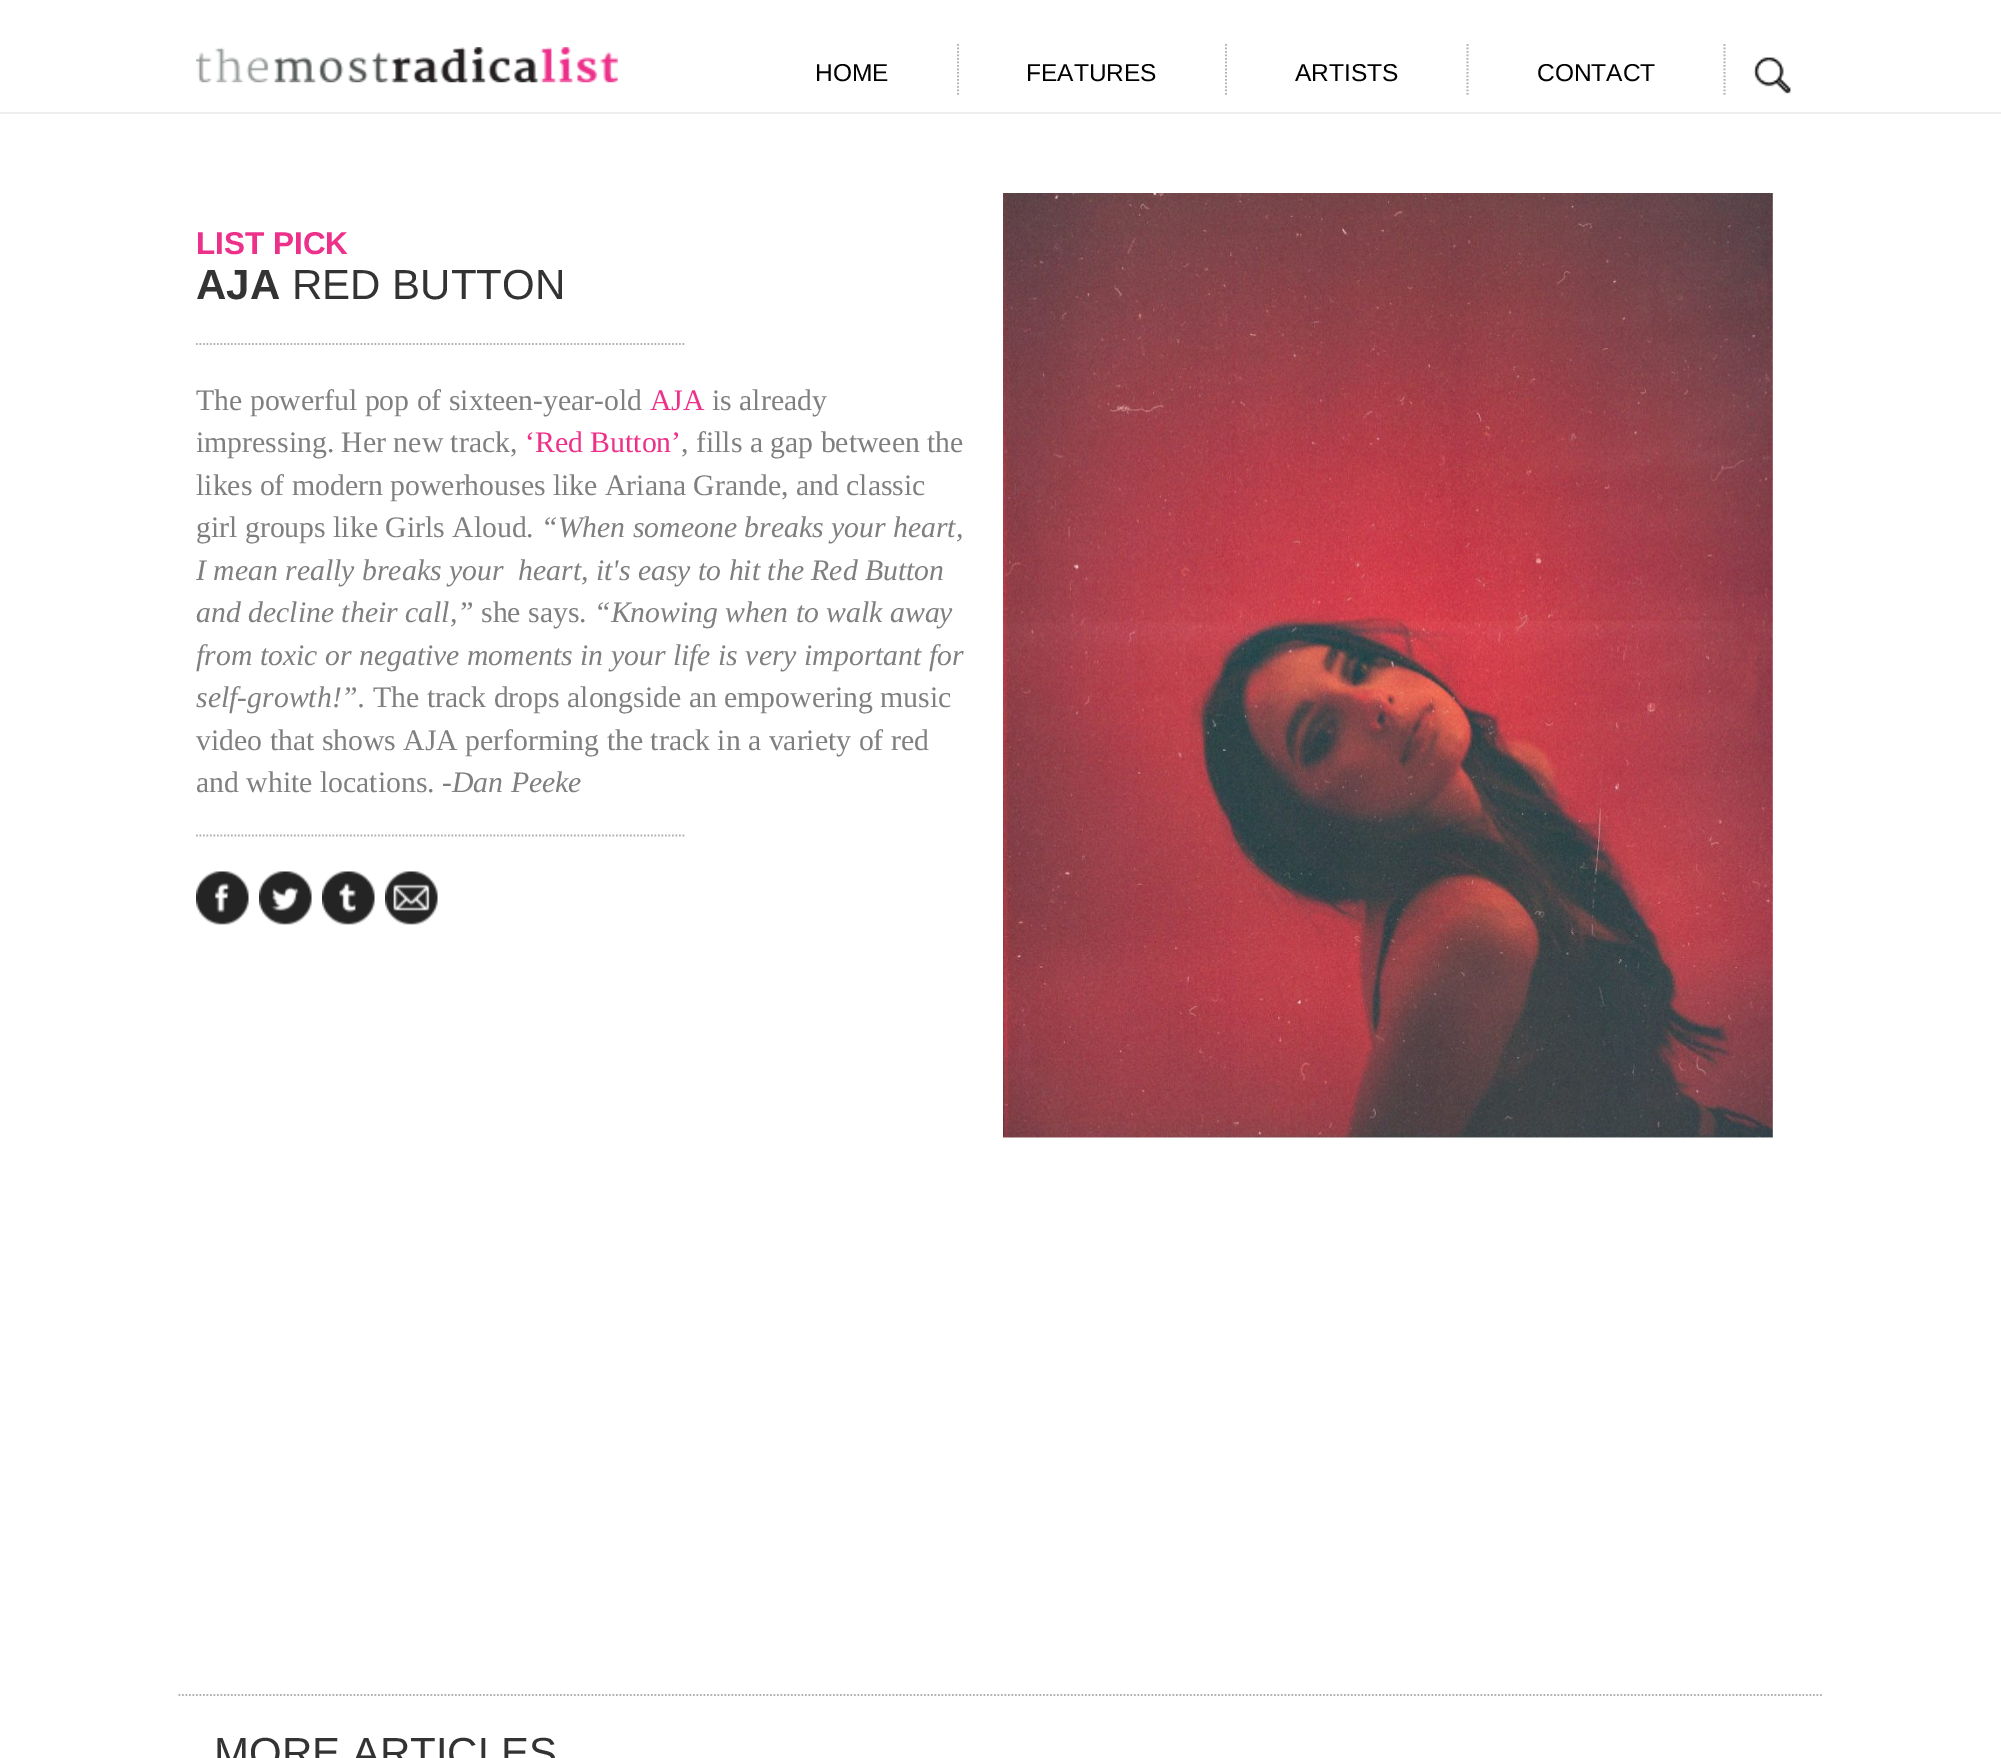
%!PS
<< /PageSize [2001 1758] >> setpagedevice
/picture { 5 dict begin { /h /w /y /x /name } { exch def } forall
  gsave x y translate w h scale
  w h 8 [w 0 0 h 0 0] name (r) file false 3 colorimage grestore end } def
0 1758 translate 1 -1 scale
4 setmiterlimit
1 setgray
0 0 2001 1758 rectfill
0.933 setgray
0 112 2001 2 rectfill
(img1.rgb) 196 47 422 36 picture
/LiberationSans-Regular [24.5 0 0 -24.5 0 0] selectfont
0 setgray
815 81 moveto (HOME) show
0.698 setgray
1.8 setlinewidth
[1.75 1.75] 0 setdash
newpath 958 44 moveto 958 96 lineto stroke
0 setgray
1026 81 moveto (FEATURES) show
0.698 setgray
newpath 1226 44 moveto 1226 96 lineto stroke
0 setgray
1295 81 moveto (ARTISTS) show
0.698 setgray
newpath 1467.5 44 moveto 1467.5 96 lineto stroke
0 setgray
1537 81 moveto (CONTACT) show
0.698 setgray
newpath 1724.5 44 moveto 1724.5 96 lineto stroke
(img2.rgb) 1753 57 38 37 picture
/LiberationSans-Bold [31.5 0 0 -31.5 0 0] selectfont
0.929 0.188 0.541 setrgbcolor
196 254 moveto (LIST PICK) show
/LiberationSans-Bold [42 0 0 -42 0 0] selectfont
0.2 setgray
196 299 moveto (AJA) show
/LiberationSans-Regular [42 0 0 -42 0 0] selectfont
292 299 moveto (RED BUTTON) show
0.698 setgray
newpath 196 344 moveto 686 344 lineto stroke
/LiberationSerif-Regular [29.75 0 0 -29.75 0 0] selectfont
0.498 setgray
196 410 moveto (The powerful pop of sixteen-year-old) show
0.929 0.188 0.541 setrgbcolor
650 410 moveto (AJA) show
0.498 setgray
712 410 moveto (is already) show
196 452 moveto (impressing. Her new track,) show
0.929 0.188 0.541 setrgbcolor
525 452 moveto (‘Red Button’) show
0.498 setgray
681 452 moveto (, fills a gap between the) show
196 495 moveto (likes of modern powerhouses like Ariana Grande, and classic) show
196 537 moveto (girl groups like Girls Aloud.) show
/LiberationSerif-Italic [29.75 0 0 -29.75 0 0] selectfont
541 537 moveto (“When someone breaks your heart,) show
196 580 moveto (I mean really breaks your  heart, it's easy to hit the Red Button) show
196 622 moveto (and decline their call,”) show
/LiberationSerif-Regular [29.75 0 0 -29.75 0 0] selectfont
481 622 moveto (she says.) show
/LiberationSerif-Italic [29.75 0 0 -29.75 0 0] selectfont
594 622 moveto (“Knowing when to walk away) show
196 665 moveto (from toxic or negative moments in your life is very important for) show
196 707 moveto (self-growth!”.) show
/LiberationSerif-Regular [29.75 0 0 -29.75 0 0] selectfont
373 707 moveto (The track drops alongside an empowering music) show
196 750 moveto (video that shows AJA performing the track in a variety of red) show
196 792 moveto (and white locations. -) show
/LiberationSerif-Italic [29.75 0 0 -29.75 0 0] selectfont
452 792 moveto (Dan Peeke) show
0.698 setgray
newpath 196 835.5 moveto 686 835.5 lineto stroke
(img3.rgb) 196 871 53 54 picture
(img4.rgb) 259 871 53 54 picture
(img5.rgb) 322 871 53 54 picture
(img6.rgb) 385 871 53 54 picture
(img7.rgb) 1003 193 770 945 picture
newpath 178.5 1695 moveto 1823.5 1695 lineto stroke
/LiberationSans-Regular [42 0 0 -42 0 0] selectfont
0.2 setgray
214 1767 moveto (MORE ARTICLES) show
showpage
